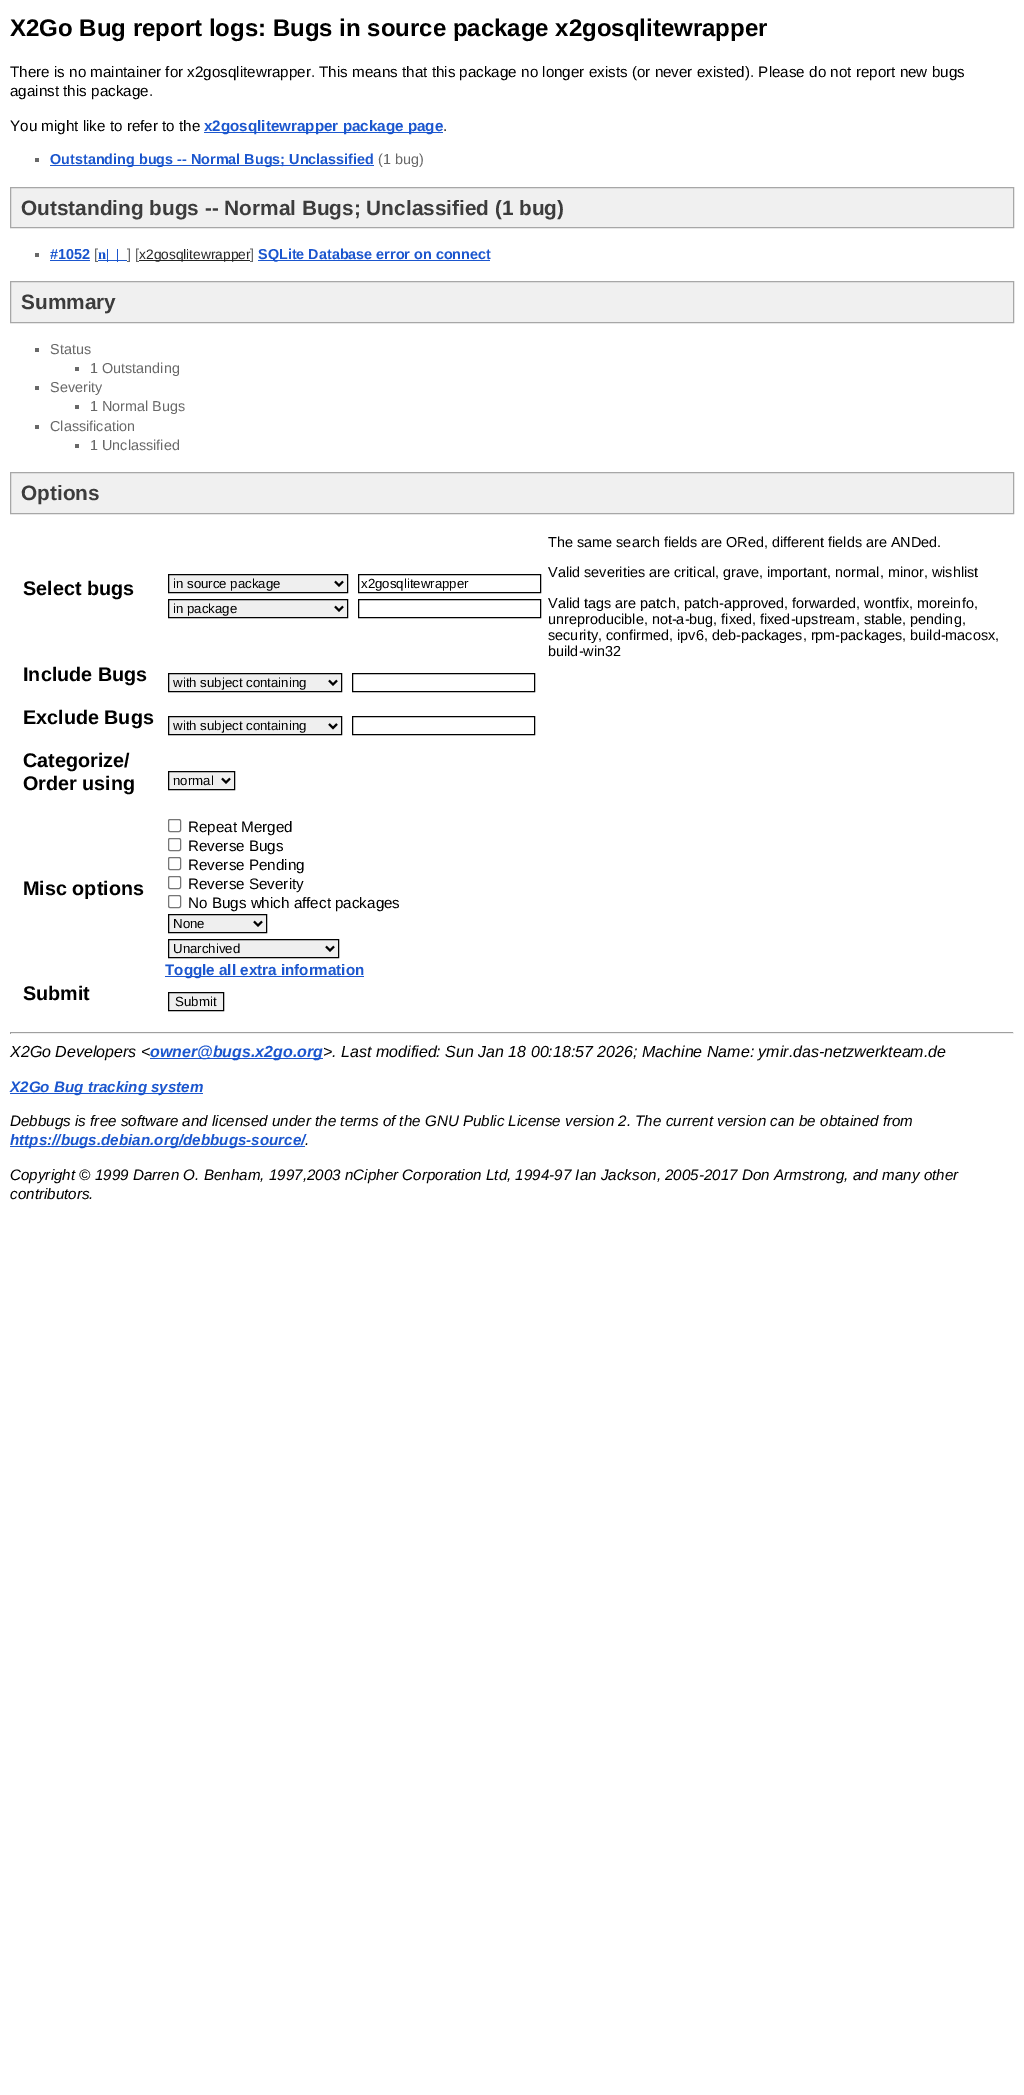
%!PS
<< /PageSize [1024 2095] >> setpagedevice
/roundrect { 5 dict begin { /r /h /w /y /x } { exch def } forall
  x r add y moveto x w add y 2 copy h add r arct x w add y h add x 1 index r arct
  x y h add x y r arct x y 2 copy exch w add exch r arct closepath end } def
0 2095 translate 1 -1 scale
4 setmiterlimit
1 setgray
0 0 1024 2095 rectfill
/LiberationSans-Bold [24 0 0 -24 0 0] selectfont
0 setgray
10 36 moveto (X2Go Bug report logs: Bugs in source package x2gosqlitewrapper) show
/LiberationSans-Regular [15.2 0 0 -15.2 0 0] selectfont
10 77 moveto (There is no maintainer for x2gosqlitewrapper. This means that this package no longer exists \(or never existed\). Please do not report new bugs) show
10 96 moveto (against this package.) show
10 131 moveto (You might like to refer to the) show
0.106 0.337 0.808 setrgbcolor
204 132 239 1 rectfill
/LiberationSans-Bold [15.2 0 0 -15.2 0 0] selectfont
204 131 moveto (x2gosqlitewrapper package page) show
/LiberationSans-Regular [15.2 0 0 -15.2 0 0] selectfont
0 setgray
443 131 moveto (.) show
0.408 setgray
35 158 4 4 rectfill
0.106 0.337 0.808 setrgbcolor
50 165 324 1 rectfill
/LiberationSans-Bold [14.4 0 0 -14.4 0 0] selectfont
50 164 moveto (Outstanding bugs -- Normal Bugs; Unclassified) show
/LiberationSans-Regular [14.4 0 0 -14.4 0 0] selectfont
0.408 setgray
378 164 moveto (\(1 bug\)) show
0.941 setgray
newpath 10.5 187.5 moveto 1013.5 187.5 lineto 1013.5 227.5 lineto 10.5 227.5 lineto closepath gsave fill grestore
0.655 setgray
stroke
/LiberationSans-Bold [20.8 0 0 -20.8 0 0] selectfont
0.235 setgray
21 215 moveto (Outstanding bugs -- Normal Bugs; Unclassified \(1 bug\)) show
0.408 setgray
35 253 4 4 rectfill
/LiberationSans-Bold [14.4 0 0 -14.4 0 0] selectfont
0.106 0.337 0.808 setrgbcolor
50 259 moveto (#1052) show
50 260 40 1 rectfill
/LiberationSans-Regular [14.4 0 0 -14.4 0 0] selectfont
0.408 setgray
94 259 moveto ([) show
0.106 0.337 0.808 setrgbcolor
98 260 29 1 rectfill
/LiberationSerif-Bold [14.4 0 0 -14.4 0 0] selectfont
98 259 moveto (n|  |) show
/LiberationSans-Regular [14.4 0 0 -14.4 0 0] selectfont
0.408 setgray
127 259 moveto (] [) show
0.141 setgray
139 260 111 1 rectfill
/LiberationSans-Regular [13.75 0 0 -13.75 0 0] selectfont
139 259 moveto (x2gosqlitewrapper) show
/LiberationSans-Regular [14.4 0 0 -14.4 0 0] selectfont
0.408 setgray
250 259 moveto (]) show
0.106 0.337 0.808 setrgbcolor
258 260 232 1 rectfill
/LiberationSans-Bold [14.4 0 0 -14.4 0 0] selectfont
258 259 moveto (SQLite Database error on connect) show
0.941 setgray
newpath 10.5 281.5 moveto 1013.5 281.5 lineto 1013.5 322.5 lineto 10.5 322.5 lineto closepath gsave fill grestore
0.655 setgray
stroke
/LiberationSans-Bold [20.8 0 0 -20.8 0 0] selectfont
0.235 setgray
21 309 moveto (Summary) show
0.408 setgray
35 348 4 4 rectfill
/LiberationSans-Regular [14.4 0 0 -14.4 0 0] selectfont
50 354 moveto (Status) show
75 367 4 4 rectfill
90 373 moveto (1 Outstanding) show
35 386 4 4 rectfill
50 392 moveto (Severity) show
75 405 4 4 rectfill
90 411 moveto (1 Normal Bugs) show
35 425 4 4 rectfill
50 431 moveto (Classification) show
75 444 4 4 rectfill
90 450 moveto (1 Unclassified) show
0.941 setgray
newpath 10.5 472.5 moveto 1013.5 472.5 lineto 1013.5 513.5 lineto 10.5 513.5 lineto closepath gsave fill grestore
0.655 setgray
stroke
/LiberationSans-Bold [20.8 0 0 -20.8 0 0] selectfont
0.235 setgray
21 500 moveto (Options) show
/LiberationSans-Bold [19.75 0 0 -19.75 0 0] selectfont
0 setgray
23 595 moveto (Select bugs) show
0.937 setgray
newpath 168.5 574.5 moveto 347.5 574.5 lineto 347.5 592.5 lineto 168.5 592.5 lineto closepath gsave fill grestore
0 setgray
stroke
2 setlinewidth
newpath 335 581.5 moveto 339 585.5 lineto 343 581.5 lineto stroke
/LiberationSans-Regular [13.25 0 0 -13.25 0 0] selectfont
173 588 moveto (in source package) show
1 setlinewidth
358.5 574.5 182 18 rectstroke
361 588 moveto (x2gosqlitewrapper) show
0.937 setgray
newpath 168.5 599.5 moveto 347.5 599.5 lineto 347.5 617.5 lineto 168.5 617.5 lineto closepath gsave fill grestore
0 setgray
stroke
2 setlinewidth
newpath 335 606.5 moveto 339 610.5 lineto 343 606.5 lineto stroke
173 613 moveto (in package) show
1 setlinewidth
358.5 599.5 182 18 rectstroke
/LiberationSans-Regular [14.45 0 0 -14.45 0 0] selectfont
548 547 moveto (The same search fields are ORed, different fields are ANDed.) show
548 577 moveto (Valid severities are critical, grave, important, normal, minor, wishlist) show
548 608 moveto (Valid tags are patch, patch-approved, forwarded, wontfix, moreinfo,) show
548 624 moveto (unreproducible, not-a-bug, fixed, fixed-upstream, stable, pending,) show
548 640 moveto (security, confirmed, ipv6, deb-packages, rpm-packages, build-macosx,) show
548 656 moveto (build-win32) show
/LiberationSans-Bold [19.75 0 0 -19.75 0 0] selectfont
23 681 moveto (Include Bugs) show
0.937 setgray
newpath 168.5 673.5 moveto 341.5 673.5 lineto 341.5 691.5 lineto 168.5 691.5 lineto closepath gsave fill grestore
0 setgray
stroke
2 setlinewidth
newpath 329 680.5 moveto 333 684.5 lineto 337 680.5 lineto stroke
/LiberationSans-Regular [13.25 0 0 -13.25 0 0] selectfont
173 687 moveto (with subject containing) show
1 setlinewidth
352.5 673.5 182 18 rectstroke
/LiberationSans-Bold [19.75 0 0 -19.75 0 0] selectfont
23 724 moveto (Exclude Bugs) show
0.937 setgray
newpath 168.5 716.5 moveto 341.5 716.5 lineto 341.5 734.5 lineto 168.5 734.5 lineto closepath gsave fill grestore
0 setgray
stroke
2 setlinewidth
newpath 329 724 moveto 333 728 lineto 337 724 lineto stroke
/LiberationSans-Regular [13.25 0 0 -13.25 0 0] selectfont
173 730 moveto (with subject containing) show
1 setlinewidth
352.5 716.5 182 18 rectstroke
/LiberationSans-Bold [19.75 0 0 -19.75 0 0] selectfont
23 767 moveto (Categorize/) show
23 790 moveto (Order using) show
0.937 setgray
newpath 168.5 771.5 moveto 234.5 771.5 lineto 234.5 789.5 lineto 168.5 789.5 lineto closepath gsave fill grestore
0 setgray
stroke
2 setlinewidth
newpath 222 778.5 moveto 226 782.5 lineto 230 778.5 lineto stroke
/LiberationSans-Regular [13.25 0 0 -13.25 0 0] selectfont
173 785 moveto (normal) show
/LiberationSans-Bold [19.75 0 0 -19.75 0 0] selectfont
23 895 moveto (Misc options) show
0.463 setgray
1 setlinewidth
168.5 819.5 12 12 1.5 roundrect stroke
/LiberationSans-Regular [15.2 0 0 -15.2 0 0] selectfont
0 setgray
188 832 moveto (Repeat Merged) show
0.463 setgray
168.5 838.5 12 12 1.5 roundrect stroke
0 setgray
188 851 moveto (Reverse Bugs) show
0.463 setgray
168.5 857.5 12 12 1.5 roundrect stroke
0 setgray
188 870 moveto (Reverse Pending) show
0.463 setgray
168.5 876.5 12 12 1.5 roundrect stroke
0 setgray
188 889 moveto (Reverse Severity) show
0.463 setgray
168.5 895.5 12 12 1.5 roundrect stroke
0 setgray
188 908 moveto (No Bugs which affect packages) show
0.937 setgray
newpath 168.5 914.5 moveto 266.5 914.5 lineto 266.5 932.5 lineto 168.5 932.5 lineto closepath gsave fill grestore
0 setgray
stroke
2 setlinewidth
newpath 254 921.5 moveto 258 925.5 lineto 262 921.5 lineto stroke
/LiberationSans-Regular [13.25 0 0 -13.25 0 0] selectfont
173 928 moveto (None) show
0.937 setgray
newpath 168.5 939.5 moveto 338.5 939.5 lineto 338.5 957.5 lineto 168.5 957.5 lineto closepath gsave fill grestore
0 setgray
1 setlinewidth
stroke
2 setlinewidth
newpath 326 946.5 moveto 330 950.5 lineto 334 946.5 lineto stroke
173 953 moveto (Unarchived) show
0.106 0.337 0.808 setrgbcolor
165 976 199 1 rectfill
/LiberationSans-Bold [15.2 0 0 -15.2 0 0] selectfont
165 975 moveto (Toggle all extra information) show
/LiberationSans-Bold [19.75 0 0 -19.75 0 0] selectfont
0 setgray
23 1000 moveto (Submit) show
0.937 setgray
newpath 168.5 992.5 moveto 223.5 992.5 lineto 223.5 1010.5 lineto 168.5 1010.5 lineto closepath gsave fill grestore
0 setgray
1 setlinewidth
stroke
/LiberationSans-Regular [13.25 0 0 -13.25 0 0] selectfont
175 1006 moveto (Submit) show
0.624 setgray
10 1032 1004 1 rectfill
0.933 setgray
1013 1032 1 2 rectfill
10 1033 1004 1 rectfill
0.624 setgray
10 1032 1 2 rectfill
/LiberationSans-Italic [16 0 0 -16 0 0] selectfont
0 setgray
10 1057 moveto (X2Go Developers <) show
0.106 0.337 0.808 setrgbcolor
150 1058 173 1 rectfill
/LiberationSans-BoldItalic [16 0 0 -16 0 0] selectfont
150 1057 moveto (owner@bugs.x2go.org) show
/LiberationSans-Italic [16 0 0 -16 0 0] selectfont
0 setgray
323 1057 moveto (>. Last modified: Sun Jan 18 00:18:57 2026; Machine Name: ymir.das-netzwerkteam.de) show
0.106 0.337 0.808 setrgbcolor
10 1093 193 1 rectfill
/LiberationSans-BoldItalic [15.2 0 0 -15.2 0 0] selectfont
10 1092 moveto (X2Go Bug tracking system) show
/LiberationSans-Italic [15.2 0 0 -15.2 0 0] selectfont
0 setgray
10 1126 moveto (Debbugs is free software and licensed under the terms of the GNU Public License version 2. The current version can be obtained from) show
0.106 0.337 0.808 setrgbcolor
10 1146 295 1 rectfill
/LiberationSans-BoldItalic [15.2 0 0 -15.2 0 0] selectfont
10 1145 moveto (https://bugs.debian.org/debbugs-source/) show
/LiberationSans-Italic [15.2 0 0 -15.2 0 0] selectfont
0 setgray
305 1145 moveto (.) show
10 1180 moveto (Copyright © 1999 Darren O. Benham, 1997,2003 nCipher Corporation Ltd, 1994-97 Ian Jackson, 2005-2017 Don Armstrong, and many other) show
10 1199 moveto (contributors.) show
showpage
